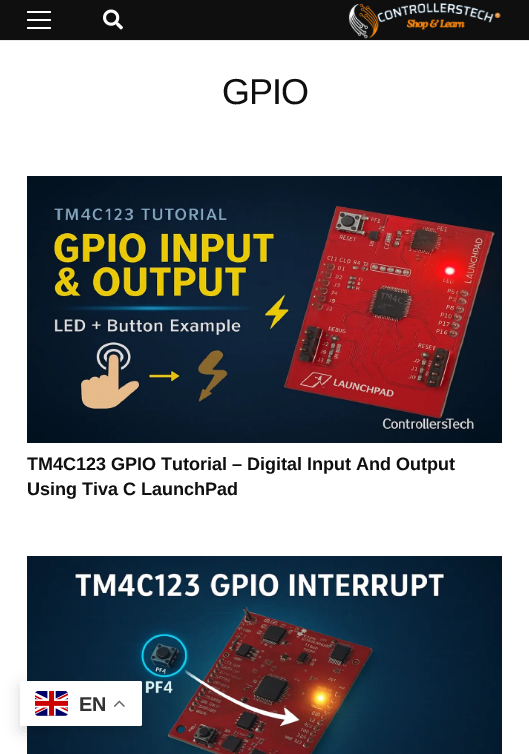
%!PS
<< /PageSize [529 754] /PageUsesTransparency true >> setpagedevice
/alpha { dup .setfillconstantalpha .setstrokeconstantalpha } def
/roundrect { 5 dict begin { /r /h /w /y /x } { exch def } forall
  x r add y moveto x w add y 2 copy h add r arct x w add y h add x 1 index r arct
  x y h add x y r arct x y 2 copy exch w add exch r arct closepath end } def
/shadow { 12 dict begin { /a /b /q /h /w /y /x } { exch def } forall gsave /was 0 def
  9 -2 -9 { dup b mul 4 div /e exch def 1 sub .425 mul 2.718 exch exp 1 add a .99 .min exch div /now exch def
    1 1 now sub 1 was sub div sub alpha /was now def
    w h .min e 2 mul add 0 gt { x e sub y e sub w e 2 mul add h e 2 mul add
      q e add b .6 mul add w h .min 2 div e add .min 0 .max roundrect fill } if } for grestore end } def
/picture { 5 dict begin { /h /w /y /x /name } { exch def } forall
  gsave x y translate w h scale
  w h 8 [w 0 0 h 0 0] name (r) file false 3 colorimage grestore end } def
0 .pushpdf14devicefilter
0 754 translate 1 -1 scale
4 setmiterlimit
1 setgray
0 0 529 754 rectfill
0.922 setgray
0 40 529 1 rectfill
0.059 setgray
0 0 529 40 rectfill
1 setgray
27 19 24 2 1 roundrect fill
27 11 24 2 1 roundrect fill
27 27 24 2 1 roundrect fill
(img1.rgb) 103 9 20 21 picture
(img2.rgb) 348 2 153 37 picture
/LiberationSans-Regular [36 0 0 -36 0 0] selectfont
0.059 setgray
222 104 moveto -1 0 (GPIO) ashow
(img3.rgb) 27 176 475 267 picture
/LiberationSans-Bold [18 0 0 -18 0 0] selectfont
27 470 moveto (TM4C123 GPIO Tutorial – Digital Input And Output) show
27 495 moveto (Using Tiva C LaunchPad) show
(img4.rgb) 27 556 475 198 picture
0 setgray
20 686 122 45 2 7.5 0.15 shadow
1 setgray
20 681 122 45 2 roundrect fill
(img5.rgb) 35 691 33 25 picture
/LiberationSans-Bold [20 0 0 -20 0 0] selectfont
0.2 setgray
79 711 moveto (EN) show
(img6.rgb) 114 700 11 7 picture
.poppdf14devicefilter showpage
